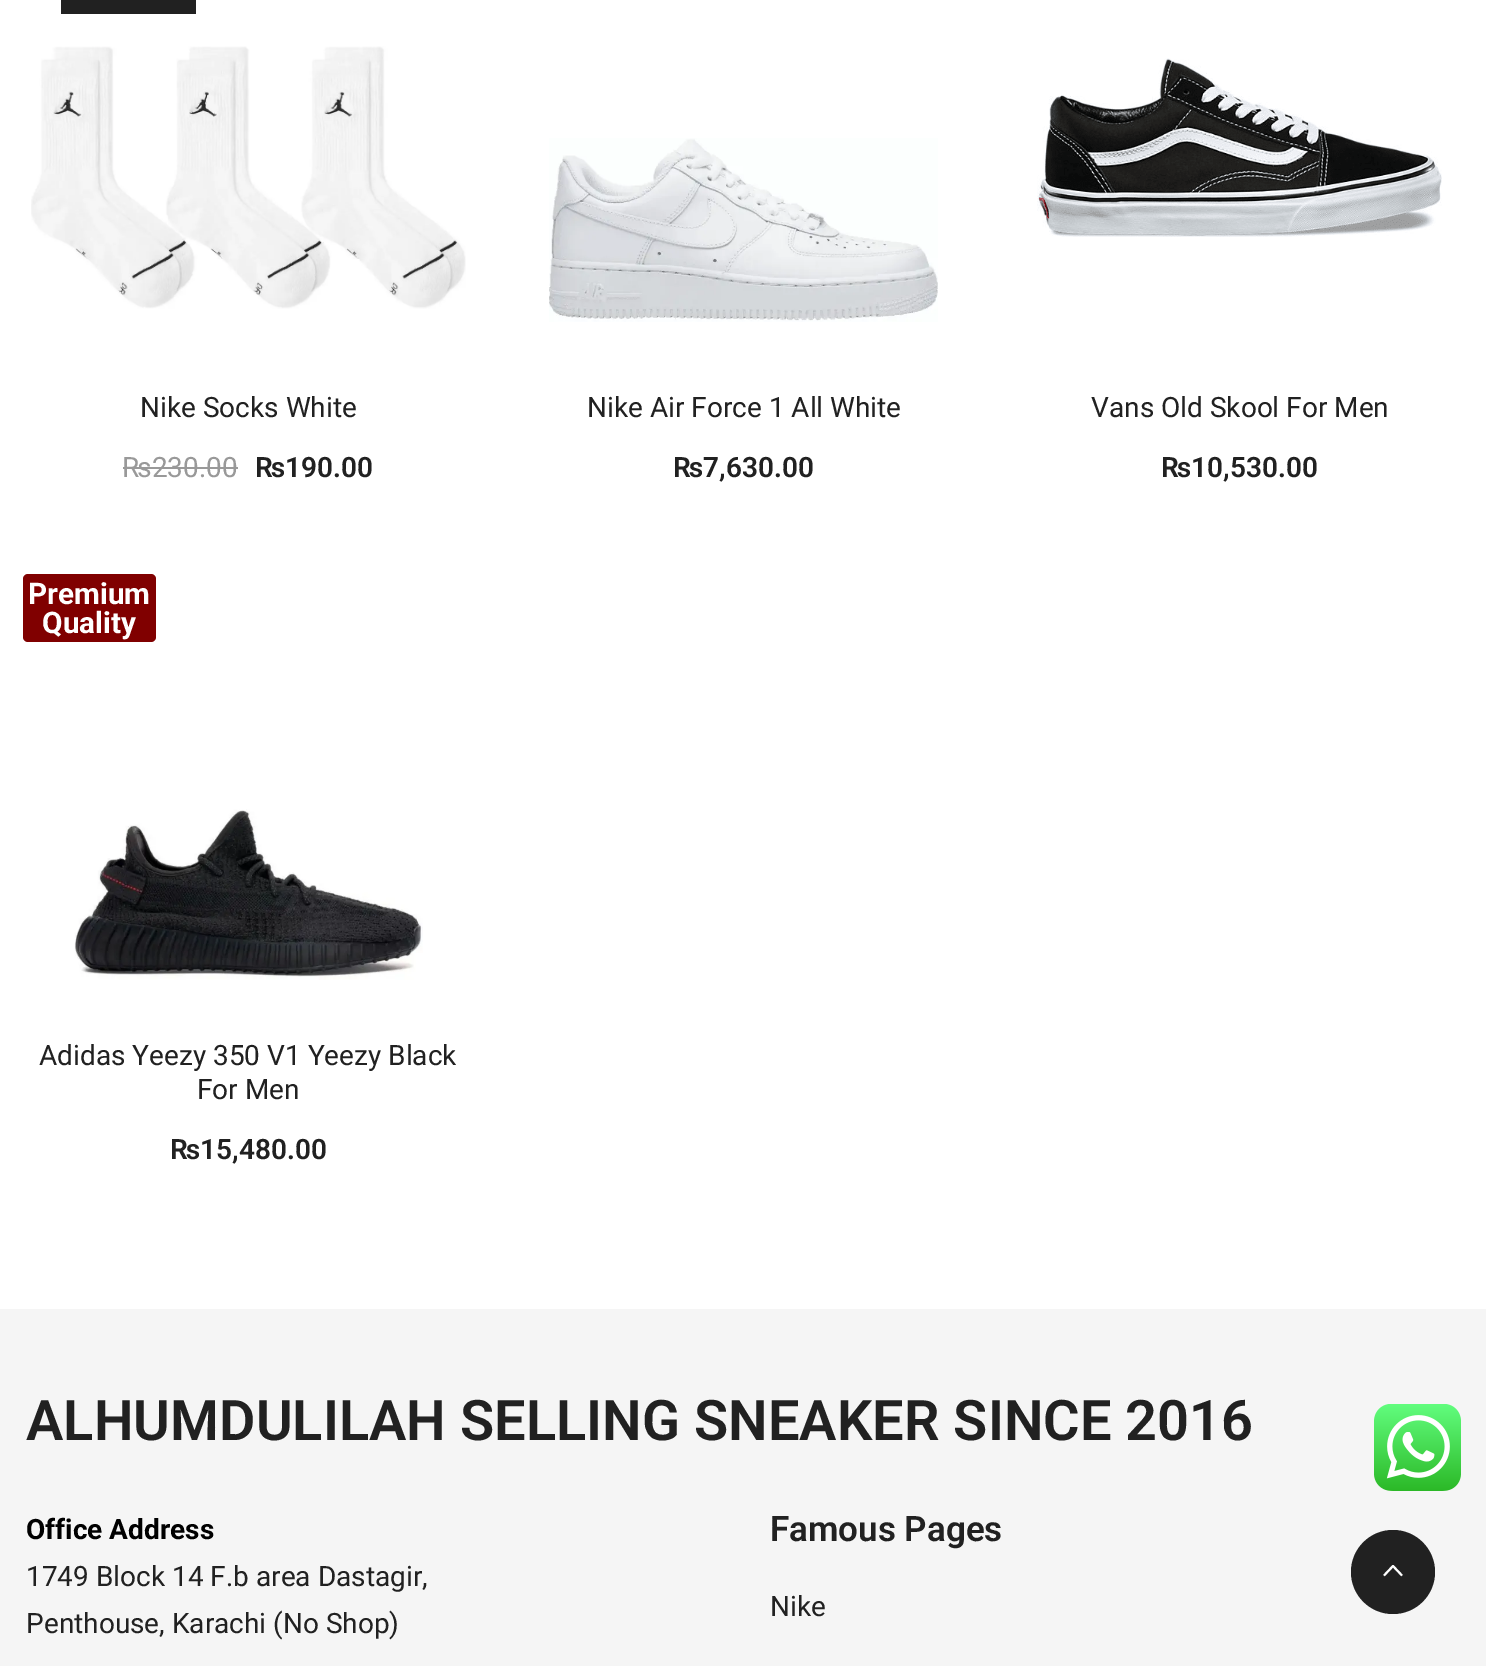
%!PS
<< /PageSize [1486 1666] >> setpagedevice
/roundrect { 5 dict begin { /r /h /w /y /x } { exch def } forall
  x r add y moveto x w add y 2 copy h add r arct x w add y h add x 1 index r arct
  x y h add x y r arct x y 2 copy exch w add exch r arct closepath end } def
/picture { 5 dict begin { /h /w /y /x /name } { exch def } forall
  gsave x y translate w h scale
  w h 8 [w 0 0 h 0 0] name (r) file false 3 colorimage grestore end } def
0 1666 translate 1 -1 scale
4 setmiterlimit
1 setgray
0 0 1486 1666 rectfill
0.129 setgray
61 0 135 14 rectfill
(img1.rgb) 31 46 435 263 picture
/Roboto-Regular [28 0 0 -28 0 0] selectfont
140 417 moveto (Nike Socks White) show
0.6 setgray
122 477 moveto (₨230.00) show
123 467 115 2 rectfill
/Roboto-SemiBold [28 0 0 -28 0 0] selectfont
0.129 setgray
255 477 moveto (₨190.00) show
(img2.rgb) 549 138 389 184 picture
/Roboto-Regular [28 0 0 -28 0 0] selectfont
587 417 moveto (Nike Air Force 1 All White) show
/Roboto-SemiBold [28 0 0 -28 0 0] selectfont
673 477 moveto (₨7,630.00) show
(img3.rgb) 1037 58 405 179 picture
/Roboto-Regular [28 0 0 -28 0 0] selectfont
1091 417 moveto (Vans Old Skool For Men) show
/Roboto-SemiBold [28 0 0 -28 0 0] selectfont
1161 477 moveto (₨10,530.00) show
0.502 0 0 setrgbcolor
23 574 133 68 5 roundrect fill
/Roboto-Bold [29.75 0 0 -29.75 0 0] selectfont
1 setgray
28 604 moveto (Premium) show
42 633 moveto (Quality) show
(img4.rgb) 74 809 349 171 picture
/Roboto-Regular [28 0 0 -28 0 0] selectfont
0.129 setgray
39 1065 moveto (Adidas Yeezy 350 V1 Yeezy Black) show
197 1099 moveto (For Men) show
/Roboto-SemiBold [28 0 0 -28 0 0] selectfont
170 1159 moveto (₨15,480.00) show
0.961 setgray
0 1309 1486 357 rectfill
/Roboto-SemiBold [56 0 0 -56 0 0] selectfont
0.129 setgray
26 1440 moveto (ALHUMDULILAH SELLING SNEAKER SINCE 2016) show
/Roboto-Bold [28 0 0 -28 0 0] selectfont
0 setgray
26 1539 moveto (Office Address) show
/Roboto-Regular [28 0 0 -28 0 0] selectfont
0.129 setgray
26 1586 moveto (1749 Block 14 F.b area Dastagir,) show
26 1633 moveto (Penthouse, Karachi \(No Shop\)) show
/Roboto-SemiBold [35 0 0 -35 0 0] selectfont
770 1541 moveto (Famous Pages) show
/Roboto-Regular [28 0 0 -28 0 0] selectfont
770 1616 moveto (Nike) show
newpath 1393 1572 42 0 360 arc closepath fill
1 setgray
2 setlinewidth
1 setlinejoin
newpath 1384 1575.5 moveto 1393 1566 lineto 1402 1575.5 lineto stroke
(img5.rgb) 1374 1404 87 87 picture
showpage
